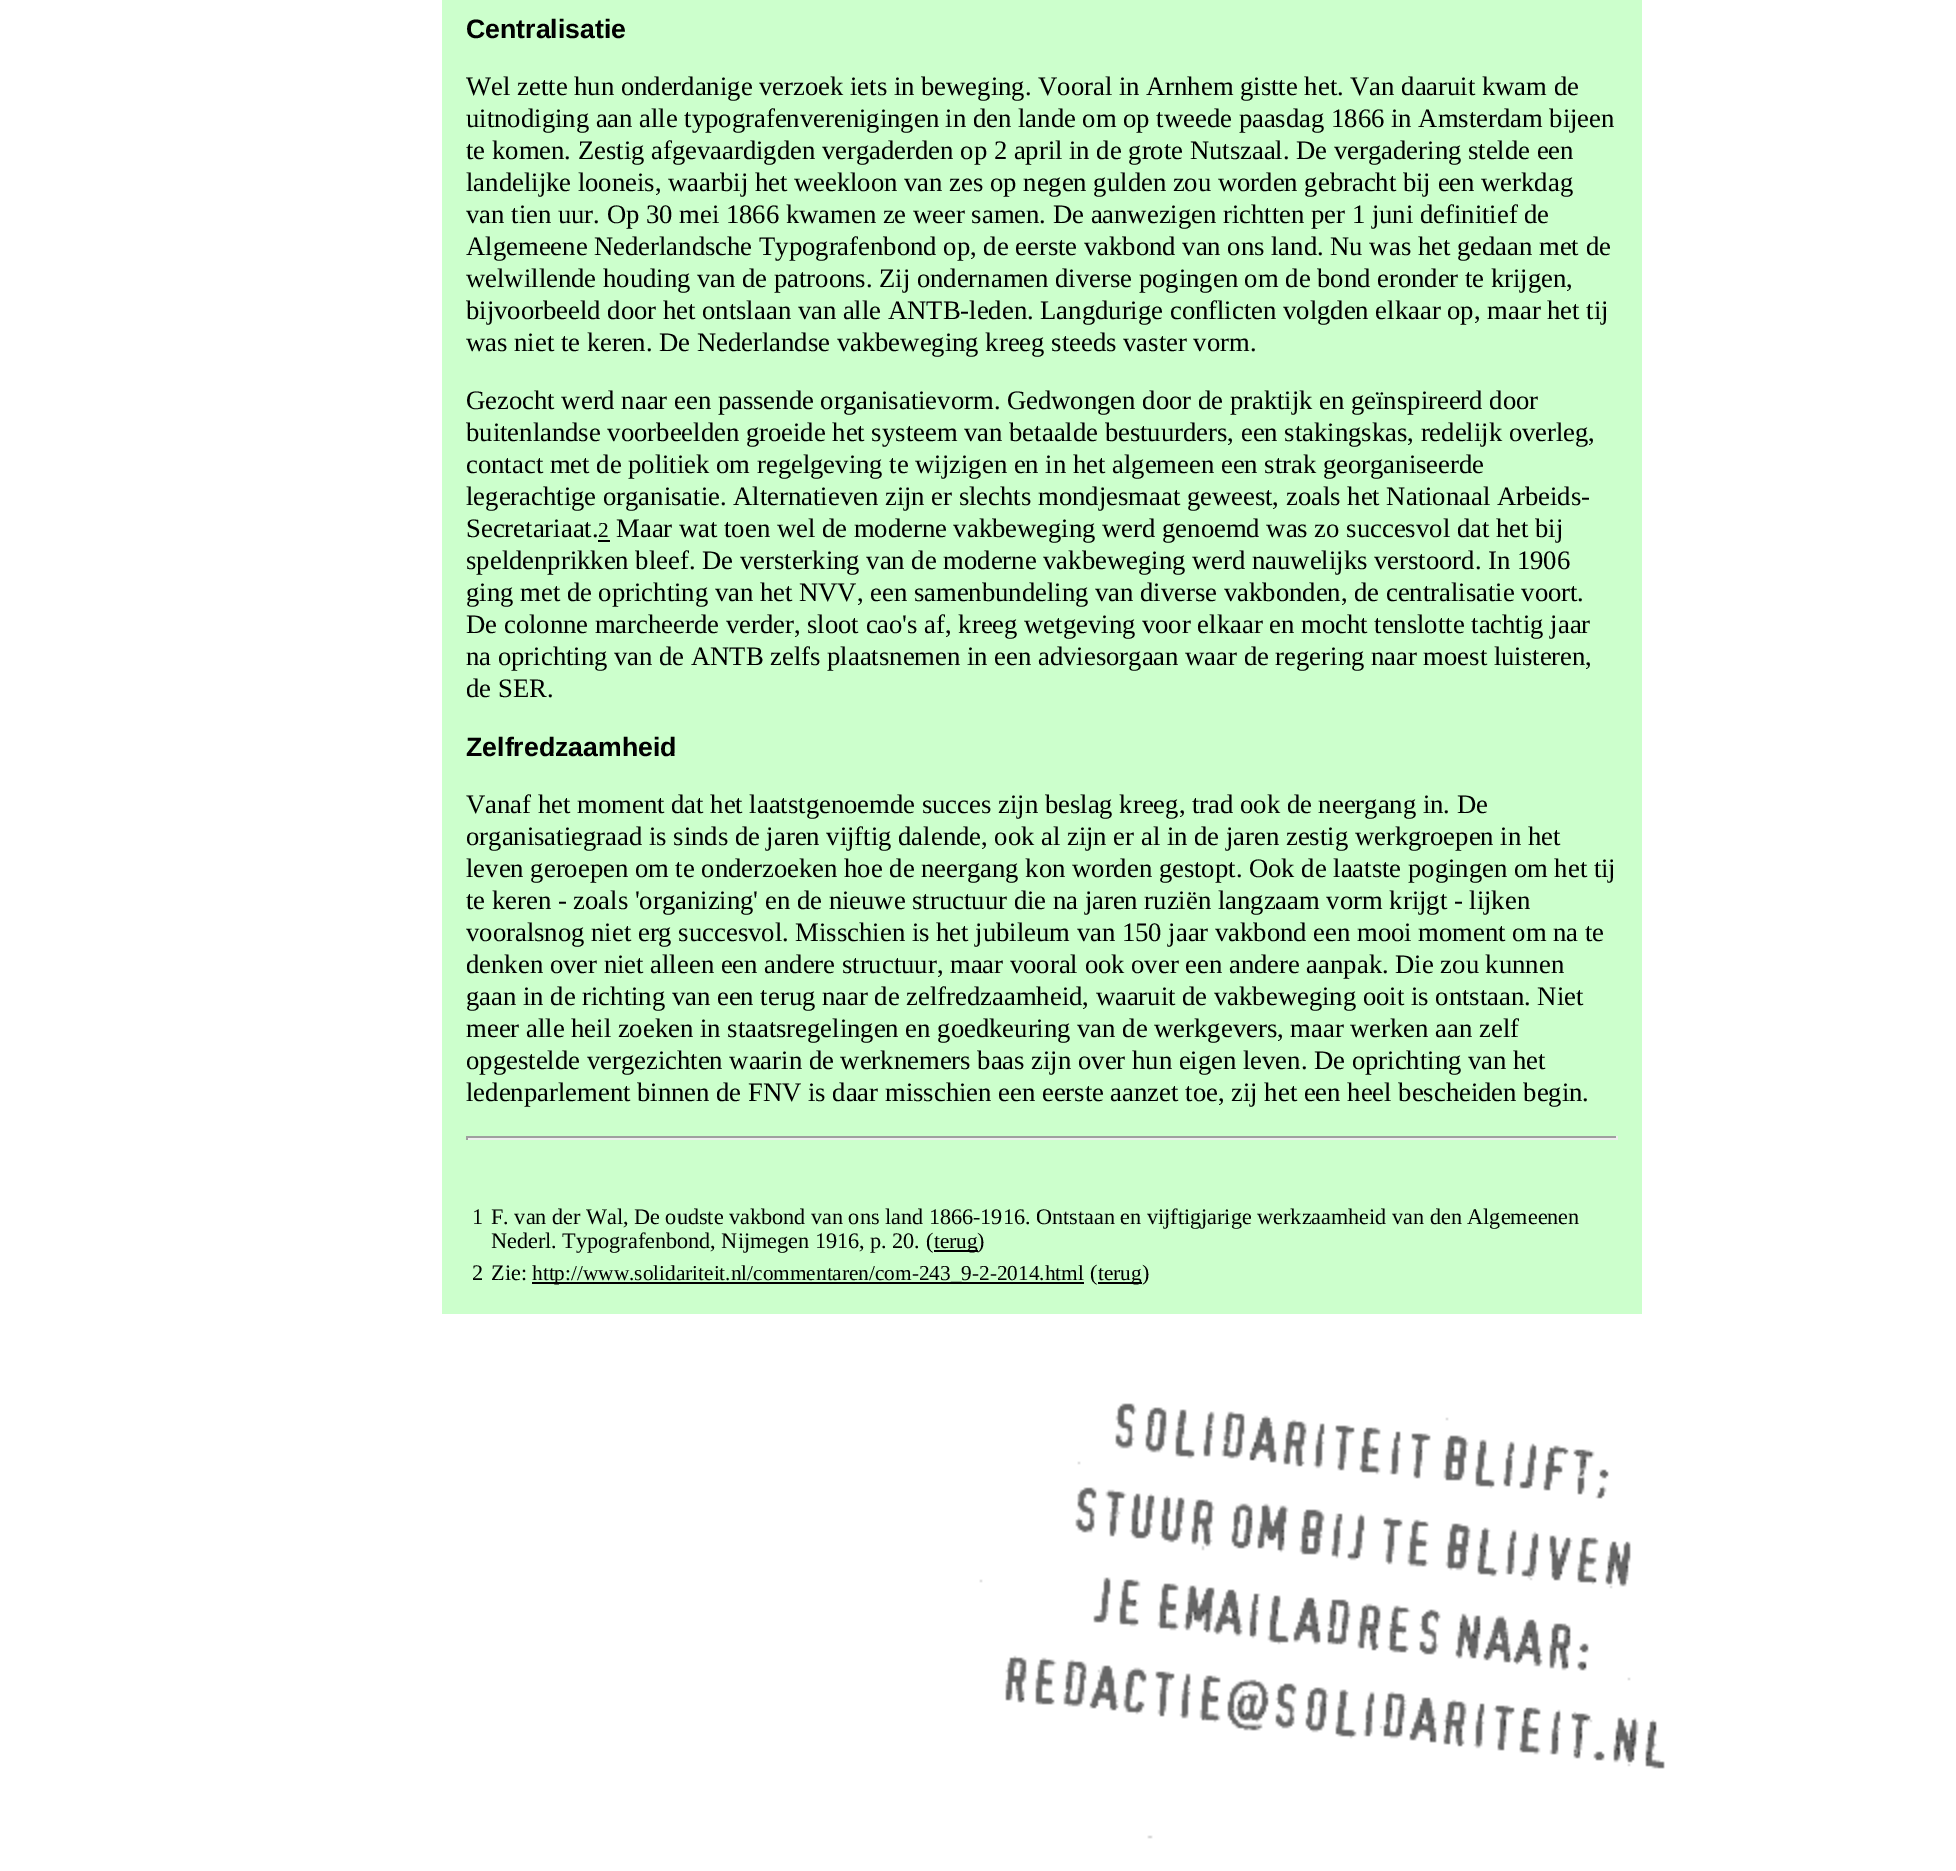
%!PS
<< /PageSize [1956 1871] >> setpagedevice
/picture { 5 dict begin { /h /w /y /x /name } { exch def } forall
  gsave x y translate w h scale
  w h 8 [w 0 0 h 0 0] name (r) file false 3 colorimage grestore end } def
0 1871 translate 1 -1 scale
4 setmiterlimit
1 setgray
0 0 1956 1871 rectfill
0.8 1 0.8 setrgbcolor
442 0 1200 1314 rectfill
/LiberationSans-Bold [26.65 0 0 -26.65 0 0] selectfont
0 setgray
466 38 moveto (Centralisatie) show
/LiberationSerif-Regular [26.65 0 0 -26.65 0 0] selectfont
466 95 moveto (Wel zette hun onderdanige verzoek iets in beweging. Vooral in Arnhem gistte het. Van daaruit kwam de) show
466 127 moveto (uitnodiging aan alle typografenverenigingen in den lande om op tweede paasdag 1866 in Amsterdam bijeen) show
466 159 moveto (te komen. Zestig afgevaardigden vergaderden op 2 april in de grote Nutszaal. De vergadering stelde een) show
466 191 moveto (landelijke looneis, waarbij het weekloon van zes op negen gulden zou worden gebracht bij een werkdag) show
466 223 moveto (van tien uur. Op 30 mei 1866 kwamen ze weer samen. De aanwezigen richtten per 1 juni definitief de) show
466 255 moveto (Algemeene Nederlandsche Typografenbond op, de eerste vakbond van ons land. Nu was het gedaan met de) show
466 287 moveto (welwillende houding van de patroons. Zij ondernamen diverse pogingen om de bond eronder te krijgen,) show
466 319 moveto (bijvoorbeeld door het ontslaan van alle ANTB-leden. Langdurige conflicten volgden elkaar op, maar het tij) show
466 351 moveto (was niet te keren. De Nederlandse vakbeweging kreeg steeds vaster vorm.) show
466 409 moveto (Gezocht werd naar een passende organisatievorm. Gedwongen door de praktijk en geïnspireerd door) show
466 441 moveto (buitenlandse voorbeelden groeide het systeem van betaalde bestuurders, een stakingskas, redelijk overleg,) show
466 473 moveto (contact met de politiek om regelgeving te wijzigen en in het algemeen een strak georganiseerde) show
466 505 moveto (legerachtige organisatie. Alternatieven zijn er slechts mondjesmaat geweest, zoals het Nationaal Arbeids-) show
466 537 moveto (Secretariaat.) show
/LiberationSerif-Regular [21.3 0 0 -21.3 0 0] selectfont
598 537 moveto (2) show
598 540 12 2 rectfill
/LiberationSerif-Regular [26.65 0 0 -26.65 0 0] selectfont
616 537 moveto (Maar wat toen wel de moderne vakbeweging werd genoemd was zo succesvol dat het bij) show
466 569 moveto (speldenprikken bleef. De versterking van de moderne vakbeweging werd nauwelijks verstoord. In 1906) show
466 601 moveto (ging met de oprichting van het NVV, een samenbundeling van diverse vakbonden, de centralisatie voort.) show
466 633 moveto (De colonne marcheerde verder, sloot cao's af, kreeg wetgeving voor elkaar en mocht tenslotte tachtig jaar) show
466 665 moveto (na oprichting van de ANTB zelfs plaatsnemen in een adviesorgaan waar de regering naar moest luisteren,) show
466 697 moveto (de SER.) show
/LiberationSans-Bold [26.65 0 0 -26.65 0 0] selectfont
466 756 moveto (Zelfredzaamheid) show
/LiberationSerif-Regular [26.65 0 0 -26.65 0 0] selectfont
466 813 moveto (Vanaf het moment dat het laatstgenoemde succes zijn beslag kreeg, trad ook de neergang in. De) show
466 845 moveto (organisatiegraad is sinds de jaren vijftig dalende, ook al zijn er al in de jaren zestig werkgroepen in het) show
466 877 moveto (leven geroepen om te onderzoeken hoe de neergang kon worden gestopt. Ook de laatste pogingen om het tij) show
466 909 moveto (te keren - zoals 'organizing' en de nieuwe structuur die na jaren ruziën langzaam vorm krijgt - lijken) show
466 941 moveto (vooralsnog niet erg succesvol. Misschien is het jubileum van 150 jaar vakbond een mooi moment om na te) show
466 973 moveto (denken over niet alleen een andere structuur, maar vooral ook over een andere aanpak. Die zou kunnen) show
466 1005 moveto (gaan in de richting van een terug naar de zelfredzaamheid, waaruit de vakbeweging ooit is ontstaan. Niet) show
466 1037 moveto (meer alle heil zoeken in staatsregelingen en goedkeuring van de werkgevers, maar werken aan zelf) show
466 1069 moveto (opgestelde vergezichten waarin de werknemers baas zijn over hun eigen leven. De oprichting van het) show
466 1101 moveto (ledenparlement binnen de FNV is daar misschien een eerste aanzet toe, zij het een heel bescheiden begin.) show
0.624 setgray
466 1136 1152 2 rectfill
0.933 setgray
1616 1136 2 4 rectfill
466 1138 1152 2 rectfill
0.624 setgray
466 1136 2 4 rectfill
/LiberationSerif-Regular [22.2 0 0 -22.2 0 0] selectfont
0 setgray
472 1224 moveto (1) show
491 1224 moveto (F. van der Wal, De oudste vakbond van ons land 1866-1916. Ontstaan en vijftigjarige werkzaamheid van den Algemeenen) show
491 1248 moveto (Nederl. Typografenbond, Nijmegen 1916, p. 20. \() show
934 1250 44 2 rectfill
/LiberationSerif-Regular [21.3 0 0 -21.3 0 0] selectfont
934 1248 moveto (terug) show
/LiberationSerif-Regular [22.2 0 0 -22.2 0 0] selectfont
977 1248 moveto (\)) show
472 1280 moveto (2) show
491 1280 moveto (Zie:) show
532 1282 552 2 rectfill
/LiberationSerif-Regular [21.3 0 0 -21.3 0 0] selectfont
532 1280 moveto (http://www.solidariteit.nl/commentaren/com-243_9-2-2014.html) show
/LiberationSerif-Regular [22.2 0 0 -22.2 0 0] selectfont
1090 1280 moveto (\() show
1098 1282 44 2 rectfill
/LiberationSerif-Regular [21.3 0 0 -21.3 0 0] selectfont
1098 1280 moveto (terug) show
/LiberationSerif-Regular [22.2 0 0 -22.2 0 0] selectfont
1142 1280 moveto (\)) show
(img1.rgb) 979 1403 686 436 picture
showpage
